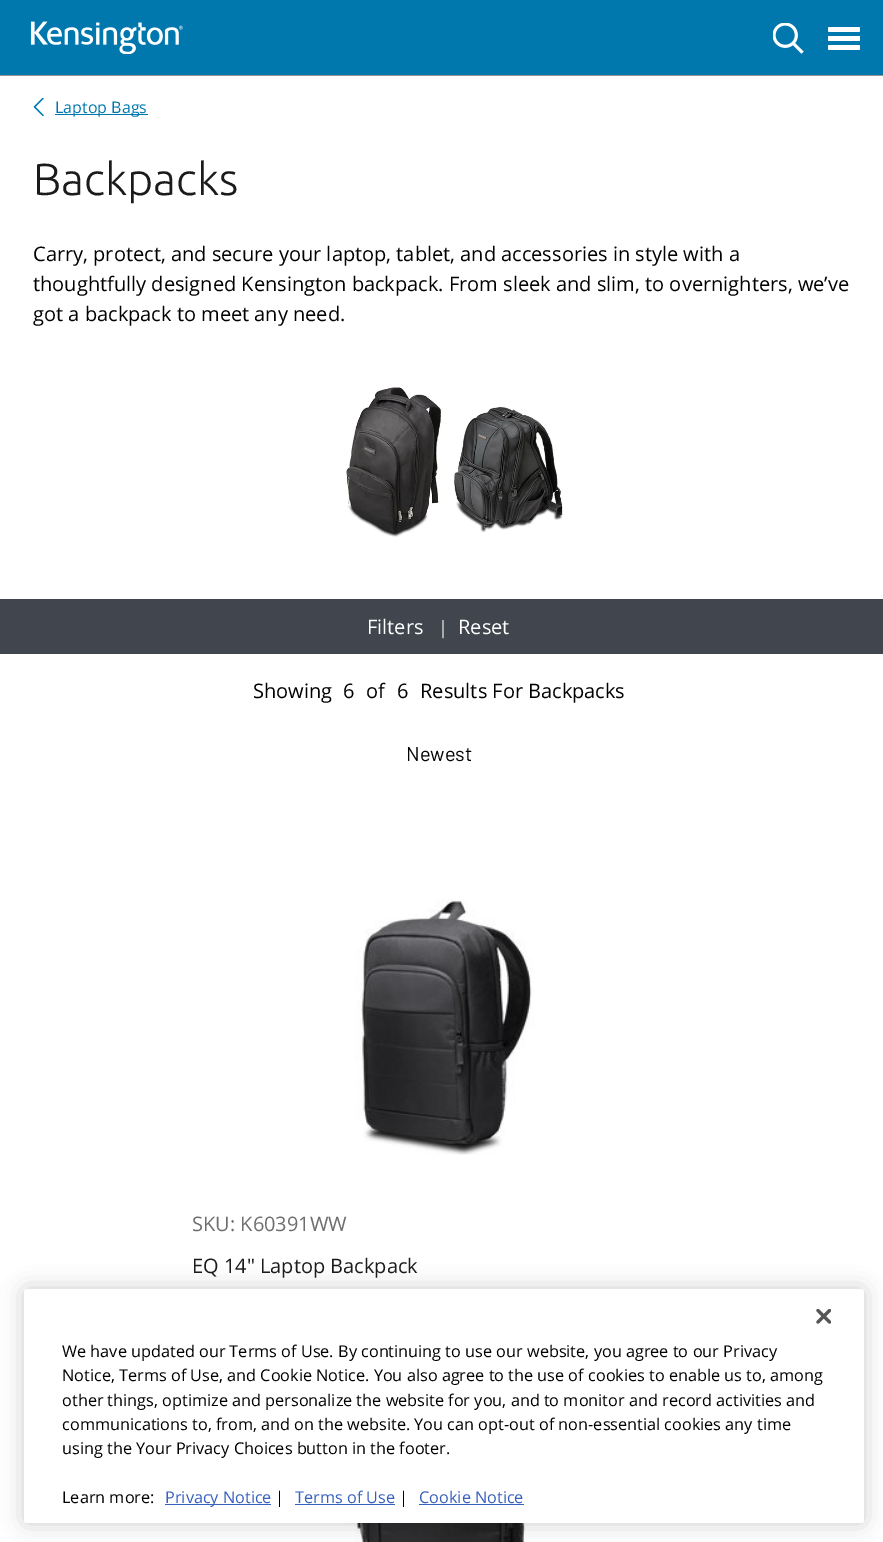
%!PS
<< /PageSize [883 1542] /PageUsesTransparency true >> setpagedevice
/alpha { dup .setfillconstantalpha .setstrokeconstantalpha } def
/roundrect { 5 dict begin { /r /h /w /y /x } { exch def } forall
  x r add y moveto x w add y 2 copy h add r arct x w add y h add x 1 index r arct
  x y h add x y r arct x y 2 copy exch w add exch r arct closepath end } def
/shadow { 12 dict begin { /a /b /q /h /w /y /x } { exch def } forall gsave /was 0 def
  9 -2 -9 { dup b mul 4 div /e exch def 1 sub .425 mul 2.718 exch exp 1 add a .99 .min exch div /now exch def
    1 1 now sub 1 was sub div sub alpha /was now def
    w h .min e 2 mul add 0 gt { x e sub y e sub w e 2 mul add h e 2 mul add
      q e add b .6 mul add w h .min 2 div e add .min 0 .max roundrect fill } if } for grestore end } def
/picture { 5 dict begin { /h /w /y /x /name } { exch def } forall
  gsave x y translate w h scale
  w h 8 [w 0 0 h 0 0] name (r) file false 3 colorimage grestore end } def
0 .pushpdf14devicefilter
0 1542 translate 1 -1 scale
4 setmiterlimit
1 setgray
0 0 883 1542 rectfill
0 0.471 0.682 setrgbcolor
0 0 883 75 rectfill
0.58 setgray
0 75 883 1 rectfill
(img1.rgb) 30 21 153 33 picture
(img2.rgb) 773 23 31 31 picture
1 setgray
828 27 32 5 1.5 roundrect fill
828 36 32 5 1 roundrect fill
828 45 32 5 1.5 roundrect fill
(img3.rgb) 33 98 11 18 picture
0 0.471 0.682 setrgbcolor
55 114 93 1 rectfill
/OpenSans-Regular [16 0 0 -16 0 0] selectfont
55 113 moveto (Laptop Bags) show
/Ubuntu-Light [45 0 0 -45 0 0] selectfont
0.106 setgray
33 195 moveto (Backpacks) show
/OpenSans-Regular [20 0 0 -20 0 0] selectfont
0 setgray
33 261 moveto (Carry, protect, and secure your laptop, tablet, and accessories in style with a) show
33 291 moveto (thoughtfully designed Kensington backpack. From sleek and slim, to overnighters, we’ve) show
33 321 moveto (got a backpack to meet any need.) show
(img4.rgb) 345 387 218 150 picture
0.251 0.271 0.306 setrgbcolor
0 599 883 55 rectfill
1 setgray
367 634 moveto (Filters) show
/LiberationSerif-Regular [20 0 0 -20 0 0] selectfont
441 634 moveto (|) show
/OpenSans-Regular [20 0 0 -20 0 0] selectfont
458 634 moveto (Reset) show
0 setgray
253 698 moveto (Showing) show
343 698 moveto (6) show
366 698 moveto (of) show
397 698 moveto (6) show
420 698 moveto (Results For Backpacks) show
/Barlow-Regular [20 0 0 -20 0 0] selectfont
406 761 moveto (Newest) show
(img5.rgb) 356 899 178 256 picture
/OpenSans-Regular [20 0 0 -20 0 0] selectfont
0.431 setgray
192 1231 moveto (SKU: K60391WW) show
0.106 setgray
192 1273 moveto (EQ 14" Laptop Backpack) show
(img6.rgb) 346 1523 180 19 picture
0 setgray
24 1289 840 234 3 11 0.2 shadow
1 setgray
24 1289 840 234 3 roundrect fill
(img7.rgb) 816 1309 15 15 picture
/OpenSans-Regular [16.25 0 0 -16.25 0 0] selectfont
0 setgray
62 1357 moveto (We have updated our Terms of Use. By continuing to use our website, you agree to our Privacy) show
62 1381 moveto (Notice, Terms of Use, and Cookie Notice. You also agree to the use of cookies to enable us to, among) show
62 1406 moveto (other things, optimize and personalize the website for you, and to monitor and record activities and) show
62 1430 moveto (communications to, from, and on the website. You can opt-out of non-essential cookies any time) show
62 1454 moveto (using the Your Privacy Choices button in the footer.) show
62 1503 moveto (Learn more:) show
0.22 0.376 0.745 setrgbcolor
165 1504 106 1 rectfill
165 1503 moveto (Privacy Notice) show
0 setgray
275 1503 moveto (|) show
0.22 0.376 0.745 setrgbcolor
295 1503 moveto (Terms of Use) show
295 1504 100 1 rectfill
0 setgray
399 1503 moveto (|) show
0.22 0.376 0.745 setrgbcolor
419 1503 moveto (Cookie Notice) show
419 1504 105 1 rectfill
.poppdf14devicefilter showpage
